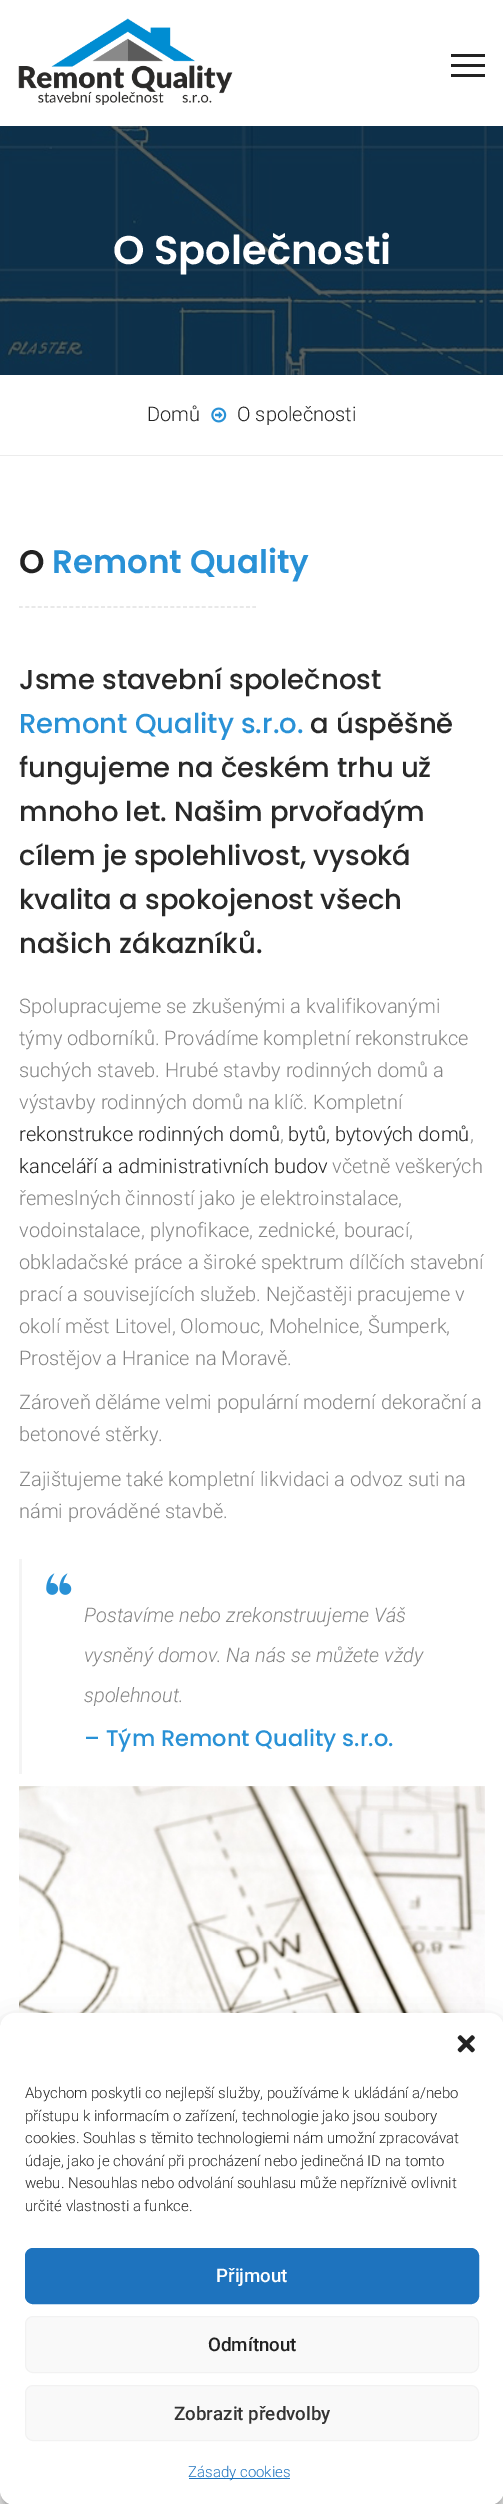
%!PS
<< /PageSize [503 2504] /PageUsesTransparency true >> setpagedevice
/alpha { dup .setfillconstantalpha .setstrokeconstantalpha } def
/roundrect { 5 dict begin { /r /h /w /y /x } { exch def } forall
  x r add y moveto x w add y 2 copy h add r arct x w add y h add x 1 index r arct
  x y h add x y r arct x y 2 copy exch w add exch r arct closepath end } def
/shadow { 12 dict begin { /a /b /q /h /w /y /x } { exch def } forall gsave /was 0 def
  9 -2 -9 { dup b mul 4 div /e exch def 1 sub .425 mul 2.718 exch exp 1 add a .99 .min exch div /now exch def
    1 1 now sub 1 was sub div sub alpha /was now def
    w h .min e 2 mul add 0 gt { x e sub y e sub w e 2 mul add h e 2 mul add
      q e add b .6 mul add w h .min 2 div e add .min 0 .max roundrect fill } if } for grestore end } def
/picture { 5 dict begin { /h /w /y /x /name } { exch def } forall
  gsave x y translate w h scale
  w h 8 [w 0 0 h 0 0] name (r) file false 3 colorimage grestore end } def
0 .pushpdf14devicefilter
0 2504 translate 1 -1 scale
4 setmiterlimit
1 setgray
0 0 503 2504 rectfill
(img1.rgb) 18 18 215 87 picture
0.133 setgray
451 64 34 3 rectfill
451 54 34 3 rectfill
451 74 34 3 rectfill
(img2.rgb) 0 126 503 249 picture
/Poppins-SemiBold [40 0 0 -40 0 0] selectfont
1 setgray
113 264 moveto (O Společnosti) show
0.925 setgray
0 455 503 1 rectfill
/Roboto-Light [20 0 0 -20 0 0] selectfont
0.133 setgray
147 421 moveto (Domů) show
(img3.rgb) 211 407 16 16 picture
237 421 moveto (O společnosti) show
/Poppins-SemiBold [32.5 0 0 -32.5 0 0] selectfont
19 573 moveto (O) show
0.161 0.569 0.839 setrgbcolor
52 573 moveto (Remont Quality) show
0.882 setgray
1.2 setlinewidth
[3.75 2.56] 0 setdash
newpath 19 607 moveto 256 607 lineto stroke
/Poppins-Medium [27.5 0 0 -27.5 0 0] selectfont
0.161 setgray
19 689 moveto (Jsme stavební společnost) show
0.161 0.569 0.839 setrgbcolor
19 733 moveto (Remont Quality s.r.o.) show
0.161 setgray
310 733 moveto (a úspěšně) show
19 777 moveto (fungujeme na českém trhu už) show
19 821 moveto (mnoho let. Našim prvořadým) show
19 865 moveto (cílem je spolehlivost, vysoká) show
19 909 moveto (kvalita a spokojenost všech) show
19 953 moveto (našich zákazníků.) show
/Roboto-Light [20 0 0 -20 0 0] selectfont
0.518 setgray
19 1013 moveto (Spolupracujeme se zkušenými a kvalifikovanými) show
19 1045 moveto (týmy odborníků. Provádíme kompletní rekonstrukce) show
19 1077 moveto (suchých staveb. Hrubé stavby rodinných domů a) show
19 1109 moveto (výstavby rodinných domů na klíč. Kompletní) show
0.133 setgray
19 1141 moveto (rekonstrukce rodinných domů) show
0.518 setgray
280 1141 moveto (,) show
0.133 setgray
288 1141 moveto (bytů, bytových domů) show
0.518 setgray
470 1141 moveto (,) show
0.133 setgray
19 1173 moveto (kanceláří a administrativních budov) show
0.518 setgray
332 1173 moveto (včetně veškerých) show
19 1205 moveto (řemeslných činností jako je elektroinstalace,) show
19 1237 moveto (vodoinstalace, plynofikace, zednické, bourací,) show
19 1269 moveto (obkladačské práce a široké spektrum dílčích stavební) show
19 1301 moveto (prací a souvisejících služeb. Nejčastěji pracujeme v) show
19 1333 moveto (okolí měst Litovel, Olomouc, Mohelnice, Šumperk,) show
19 1365 moveto (Prostějov a Hranice na Moravě.) show
19 1409 moveto (Zároveň děláme velmi populární moderní dekorační a) show
19 1441 moveto (betonové stěrky.) show
19 1486 moveto (Zajištujeme také kompletní likvidaci a odvoz suti na) show
19 1518 moveto (námi prováděné stavbě.) show
0.957 setgray
19 1559 3 215 rectfill
(img4.rgb) 46 1573 26 22 picture
/Roboto-LightItalic [20 0 0 -20 0 0] selectfont
0.518 setgray
84 1622 moveto (Postavíme nebo zrekonstruujeme Váš) show
84 1662 moveto (vysněný domov. Na nás se můžete vždy) show
84 1702 moveto (spolehnout.) show
/Poppins-Medium [22.5 0 0 -22.5 0 0] selectfont
0.161 0.569 0.839 setrgbcolor
84 1746 moveto (– Tým Remont Quality s.r.o.) show
(img5.rgb) 19 1786 466 227 picture
0 setgray
0 2020 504 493 15 4 0.23 shadow
0 2025 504 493 15 12.5 0.19 shadow
1 setgray
0 2013 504 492 15 roundrect fill
(img6.rgb) 457 2035 18 18 picture
/Roboto-Light [15 0 0 -15 0 0] selectfont
0.133 setgray
25 2098 moveto (Abychom poskytli co nejlepší služby, používáme k ukládání a/nebo) show
25 2121 moveto (přístupu k informacím o zařízení, technologie jako jsou soubory) show
25 2143 moveto (cookies. Souhlas s těmito technologiemi nám umožní zpracovávat) show
25 2166 moveto (údaje, jako je chování při procházení nebo jedinečná ID na tomto) show
25 2188 moveto (webu. Nesouhlas nebo odvolání souhlasu může nepříznivě ovlivnit) show
25 2211 moveto (určité vlastnosti a funkce.) show
0.118 0.451 0.745 setrgbcolor
25.5 2248.5 453 55 7.5 roundrect gsave fill grestore
1 setlinewidth
[] 0 setdash
stroke
/Roboto-Medium [18.75 0 0 -18.75 0 0] selectfont
1 setgray
216 2282 moveto (Přijmout) show
0.976 setgray
25.5 2316.5 453 56 7.5 roundrect gsave fill grestore
0.949 setgray
stroke
0.133 setgray
208 2351 moveto (Odmítnout) show
0.976 setgray
25.5 2385.5 453 55 7.5 roundrect gsave fill grestore
0.949 setgray
stroke
0.2 setgray
174 2420 moveto (Zobrazit předvolby) show
0.118 0.451 0.745 setrgbcolor
189 2478 101 1 rectfill
/Roboto-Light [15 0 0 -15 0 0] selectfont
188 2477 moveto (Zásady cookies) show
.poppdf14devicefilter showpage
